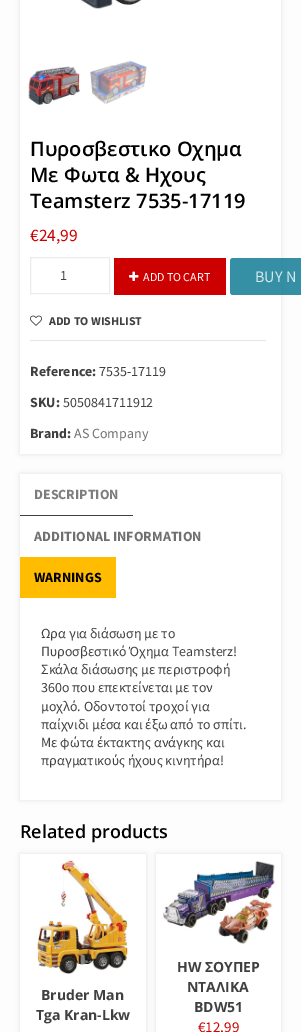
%!PS
<< /PageSize [301 1032] /PageUsesTransparency true >> setpagedevice
/alpha { dup .setfillconstantalpha .setstrokeconstantalpha } def
/roundrect { 5 dict begin { /r /h /w /y /x } { exch def } forall
  x r add y moveto x w add y 2 copy h add r arct x w add y h add x 1 index r arct
  x y h add x y r arct x y 2 copy exch w add exch r arct closepath end } def
/shadow { 12 dict begin { /a /b /q /h /w /y /x } { exch def } forall gsave /was 0 def
  9 -2 -9 { dup b mul 4 div /e exch def 1 sub .425 mul 2.718 exch exp 1 add a .99 .min exch div /now exch def
    1 1 now sub 1 was sub div sub alpha /was now def
    w h .min e 2 mul add 0 gt { x e sub y e sub w e 2 mul add h e 2 mul add
      q e add b .6 mul add w h .min 2 div e add .min 0 .max roundrect fill } if } for grestore end } def
/picture { 5 dict begin { /h /w /y /x /name } { exch def } forall
  gsave x y translate w h scale
  w h 8 [w 0 0 h 0 0] name (r) file false 3 colorimage grestore end } def
0 .pushpdf14devicefilter
0 1032 translate 1 -1 scale
4 setmiterlimit
0.992 setgray
0 0 301 1032 rectfill
0 setgray
20 -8 261 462 0 2.5 0.1 shadow
1 setgray
20 0 261 454 rectfill
(img1.rgb) 80 0 62 9 picture
(img2.rgb) 28 66 52 39 picture
(img3.rgb) 90 60 57 45 picture
/OpenSans-SemiBold [20 0 0 -20 0 0] selectfont
0 setgray
30 156 moveto (Πυροσβεστικο Οχημα) show
30 182 moveto (Με Φωτα & Ηχους) show
30 208 moveto (Teamsterz 7535-17119) show
/SourceSansPro-Regular [17.5 0 0 -17.5 0 0] selectfont
0.8 0 0 setrgbcolor
30 241 moveto (€24,99) show
0.922 setgray
30.5 257.5 79 36 rectstroke
/SourceSansPro-Regular [14 0 0 -14 0 0] selectfont
0.251 setgray
60 280 moveto (1) show
0.8 0 0 setrgbcolor
114 258 112 37 rectfill
(img4.rgb) 129 271 10 10 picture
/SourceSansPro-Regular [12 0 0 -12 0 0] selectfont
1 setgray
143 281 moveto (ADD TO CART) show
0.8 alpha
0.012 0.451 0.561 setrgbcolor
230 258 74 37 3 roundrect fill
/SourceSansPro-Regular [16 0 0 -16 0 0] selectfont
1 alpha
0.843 0.914 0.929 setrgbcolor
255 282 moveto (BUY N) show
(img5.rgb) 30 315 12 11 picture
/SourceSansPro-Bold [12 0 0 -12 0 0] selectfont
0.251 setgray
49 325 moveto (ADD TO WISHLIST) show
0.902 setgray
30 340 236 1 rectfill
/SourceSansPro-Bold [14 0 0 -14 0 0] selectfont
0.251 setgray
30 376 moveto (Reference:) show
/SourceSansPro-Regular [14 0 0 -14 0 0] selectfont
99 376 moveto (7535-17119) show
/SourceSansPro-Bold [14 0 0 -14 0 0] selectfont
30 407 moveto (SKU:) show
/SourceSansPro-Regular [14 0 0 -14 0 0] selectfont
63 407 moveto (5050841711912) show
/SourceSansPro-Bold [14 0 0 -14 0 0] selectfont
30 438 moveto (Brand:) show
/SourceSansPro-Regular [14 0 0 -14 0 0] selectfont
0.439 setgray
74 438 moveto (AS Company) show
0 setgray
20 474 261 326 0 2.5 0.1 shadow
1 setgray
20 474 261 326 rectfill
0.251 setgray
20 515 113 1 rectfill
/SourceSansPro-Bold [14 0 0 -14 0 0] selectfont
0.49 setgray
34 499 moveto (DESCRIPTION) show
0.439 setgray
34 541 moveto (ADDITIONAL INFORMATION) show
1 0.737 0 setrgbcolor
20 557 96 41 rectfill
0 setgray
34 582 moveto (WARNINGS) show
/SourceSansPro-Regular [14 0 0 -14 0 0] selectfont
0.251 setgray
41 638 moveto (Ωρα για διάσωση με το) show
41 656 moveto (Πυροσβεστικό Όχημα Teamsterz!) show
41 674 moveto (Σκάλα διάσωσης με περιστροφή) show
41 692 moveto (360ο που επεκτείνεται με τον) show
41 711 moveto (μοχλό. Οδοντοτοί τροχοί για) show
41 729 moveto (παίχνιδι μέσα και έξω από το σπίτι.) show
41 747 moveto (Με φώτα έκτακτης ανάγκης και) show
41 765 moveto (πραγματικούς ήχους κινητήρα!) show
/OpenSans-SemiBold [18 0 0 -18 0 0] selectfont
0 setgray
20 838 moveto (Related products) show
20 854 126 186 0 2.5 0.1 shadow
1 setgray
20 854 126 178 rectfill
(img6.rgb) 36 859 93 115 picture
/OpenSans-Bold [14 0 0 -14 0 0] selectfont
0.251 setgray
41 1000 moveto (Bruder Man) show
36 1020 moveto (Tga Kran-Lkw) show
0 setgray
156 854 125 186 0 2.5 0.1 shadow
1 setgray
156 854 125 178 rectfill
(img7.rgb) 163 861 113 83 picture
0.251 setgray
177 972 moveto (HW ΣΟΥΠΕΡ) show
187 992 moveto (ΝΤΑΛΙΚΑ) show
194 1012 moveto (BDW51) show
/SourceSansPro-Regular [15 0 0 -15 0 0] selectfont
0.8 0 0 setrgbcolor
198 1032 moveto (€12,99) show
.poppdf14devicefilter showpage
